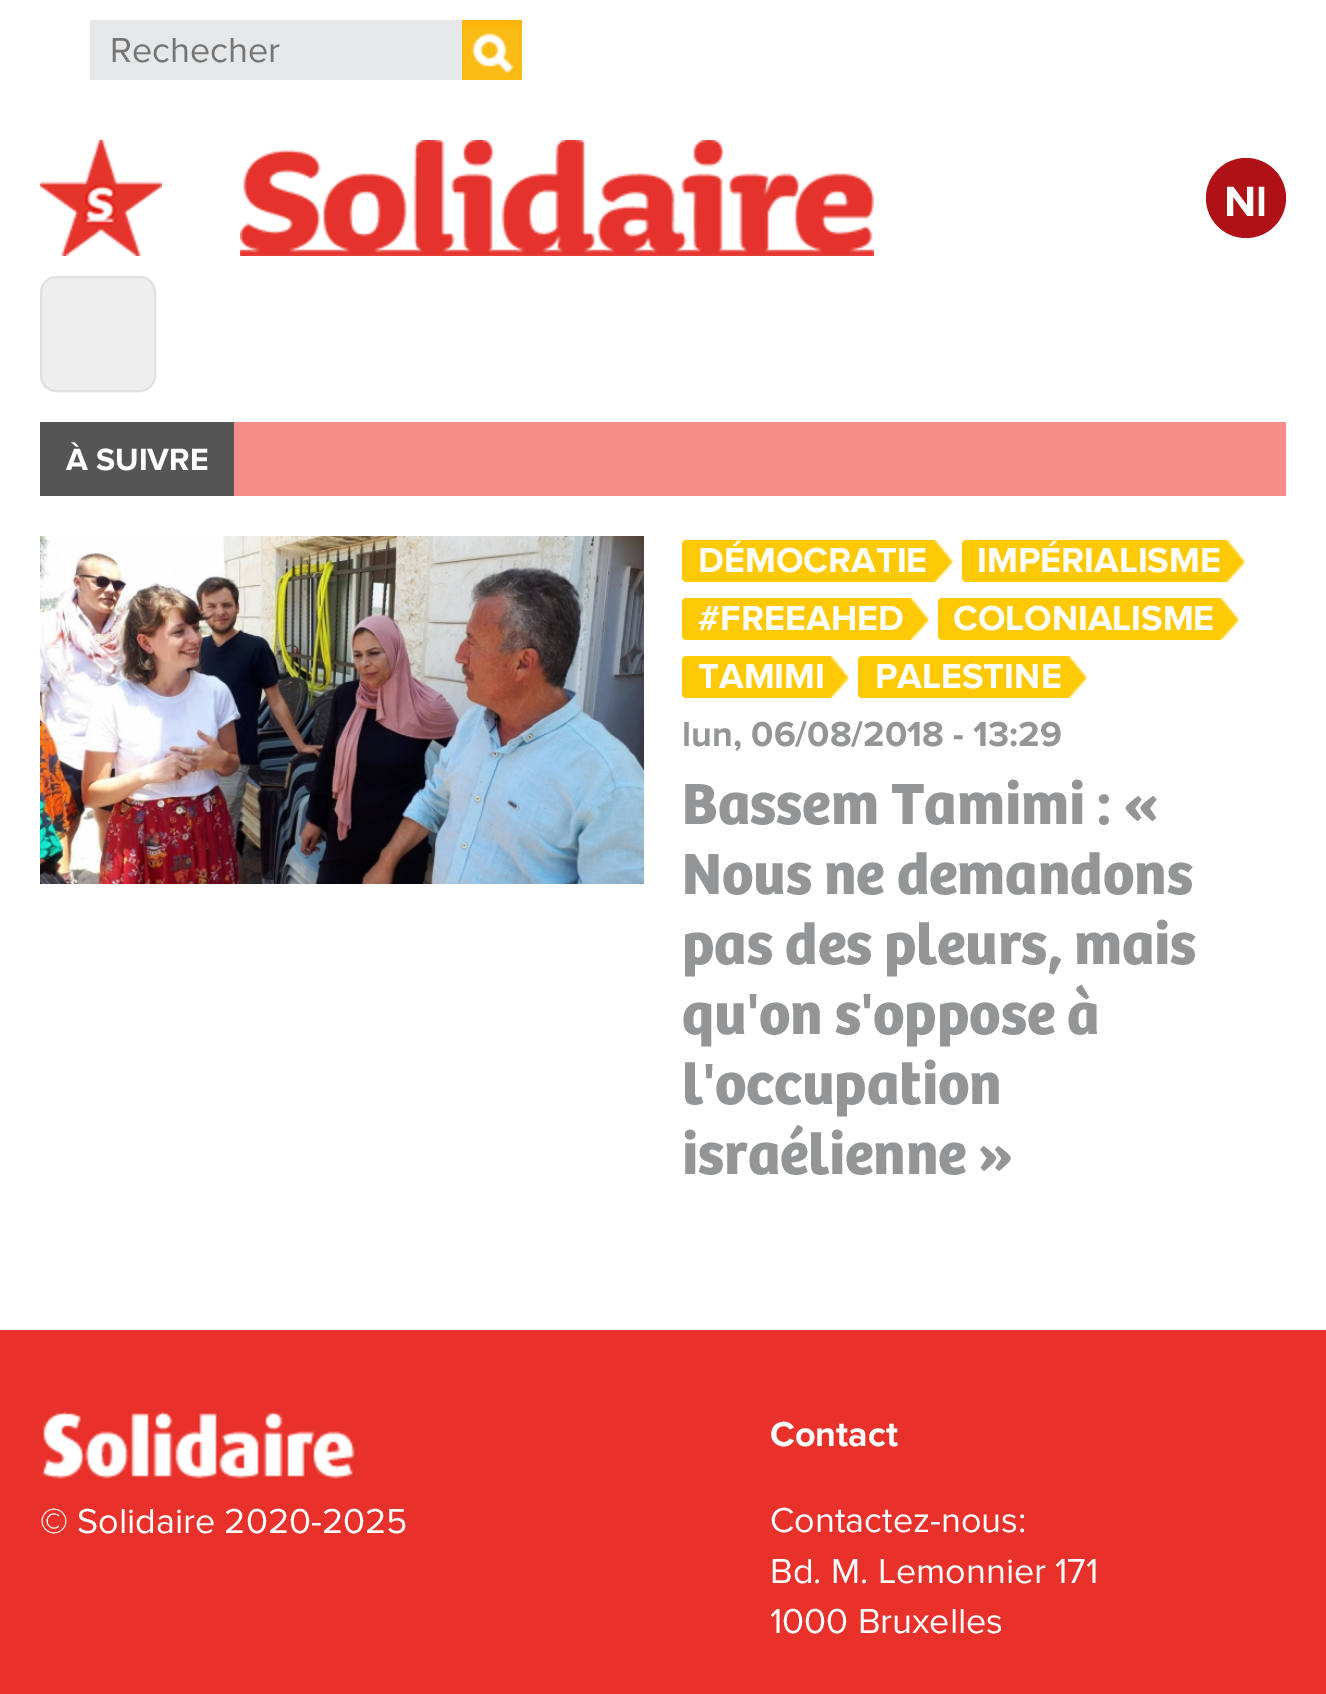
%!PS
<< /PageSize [1326 1694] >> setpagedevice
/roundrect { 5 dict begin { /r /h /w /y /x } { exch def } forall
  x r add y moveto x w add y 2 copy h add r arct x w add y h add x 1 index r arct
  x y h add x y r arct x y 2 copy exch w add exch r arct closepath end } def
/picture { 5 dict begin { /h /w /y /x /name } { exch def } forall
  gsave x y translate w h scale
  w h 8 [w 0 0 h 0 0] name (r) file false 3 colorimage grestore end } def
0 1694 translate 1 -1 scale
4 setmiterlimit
1 setgray
0 0 1326 1694 rectfill
0.902 0.906 0.91 setrgbcolor
90 20 372 60 rectfill
/ProximaNova-Regular [36 0 0 -36 0 0] selectfont
0.459 setgray
110 62 moveto (Rechecher) show
0.976 0.729 0.078 setrgbcolor
462 28 60 52 rectfill
(img1.rgb) 471 33 44 42 picture
1 0.71 0.043 setrgbcolor
462 20 60 8 rectfill
(img2.rgb) 40 140 122 116 picture
(img3.rgb) 240 140 634 116 picture
0.69 0.067 0.086 setrgbcolor
newpath 1246 198 40 0 360 arc closepath fill
/ProximaNova-Bold [44 0 0 -44 0 0] selectfont
1 setgray
1224 216 moveto (Nl) show
0.933 setgray
41 277 114 114 15 roundrect gsave fill grestore
0.878 setgray
2 setlinewidth
stroke
0.965 0.553 0.529 setrgbcolor
234 422 1052 74 rectfill
0.333 setgray
40 422 194 74 rectfill
/ProximaNova-Bold [32 0 0 -32 0 0] selectfont
1 setgray
66 470 moveto (À SUIVRE) show
(img4.rgb) 40 536 604 348 picture
1 0.792 0.02 setrgbcolor
newpath 686 540 moveto 962 540 lineto 962 582 lineto 686 582 lineto 684 582 682 580 682 578 curveto 682 544 lineto 682 542 684 540 686 540 curveto closepath fill
(img5.rgb) 933 540 29 42 picture
/ProximaNova-Bold [36 0 0 -36 0 0] selectfont
1 setgray
698 572 moveto (DÉMOCRATIE) show
1 0.792 0.02 setrgbcolor
newpath 966 540 moveto 1254 540 lineto 1254 582 lineto 966 582 lineto 964 582 962 580 962 578 curveto 962 544 lineto 962 542 964 540 966 540 curveto closepath fill
(img5.rgb) 1225 540 29 42 picture
1 setgray
977 572 moveto (IMPÉRIALISME) show
1 0.792 0.02 setrgbcolor
newpath 686 598 moveto 938 598 lineto 938 640 lineto 686 640 lineto 684 640 682 638 682 636 curveto 682 602 lineto 682 600 684 598 686 598 curveto closepath fill
(img5.rgb) 909 598 29 42 picture
1 setgray
698 630 moveto (#FREEAHED) show
1 0.792 0.02 setrgbcolor
newpath 942 598 moveto 1248 598 lineto 1248 640 lineto 942 640 lineto 940 640 938 638 938 636 curveto 938 602 lineto 938 600 940 598 942 598 curveto closepath fill
(img5.rgb) 1219 598 29 42 picture
1 setgray
953 630 moveto (COLONIALISME) show
1 0.792 0.02 setrgbcolor
newpath 686 656 moveto 858 656 lineto 858 698 lineto 686 698 lineto 684 698 682 696 682 694 curveto 682 660 lineto 682 658 684 656 686 656 curveto closepath fill
(img5.rgb) 829 656 29 42 picture
1 setgray
698 688 moveto (TAMIMI) show
1 0.792 0.02 setrgbcolor
newpath 862 656 moveto 1096 656 lineto 1096 698 lineto 862 698 lineto 860 698 858 696 858 694 curveto 858 660 lineto 858 658 860 656 862 656 curveto closepath fill
(img5.rgb) 1067 656 29 42 picture
1 setgray
875 688 moveto (PALESTINE) show
0.576 0.584 0.592 setrgbcolor
682 746 moveto (lun, 06/08/2018 - 13:29) show
/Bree-Bold [60 0 0 -60 0 0] selectfont
682 824 moveto (Bassem Tamimi : «) show
682 894 moveto (Nous ne demandons) show
682 964 moveto (pas des pleurs, mais) show
682 1034 moveto (qu'on s'oppose à) show
682 1104 moveto (l'occupation) show
682 1174 moveto (israélienne ») show
0.91 0.192 0.165 setrgbcolor
0 1330 1326 364 rectfill
(img6.rgb) 41 1411 314 68 picture
/ProximaNova-Regular [36 0 0 -36 0 0] selectfont
1 setgray
40 1533 moveto (© Solidaire 2020-2025) show
/ProximaNova-Bold [36 0 0 -36 0 0] selectfont
770 1446 moveto (Contact) show
/ProximaNova-Regular [36 0 0 -36 0 0] selectfont
770 1532 moveto (Contactez-nous:) show
770 1583 moveto (Bd. M. Lemonnier 171) show
770 1633 moveto (1000 Bruxelles) show
showpage
